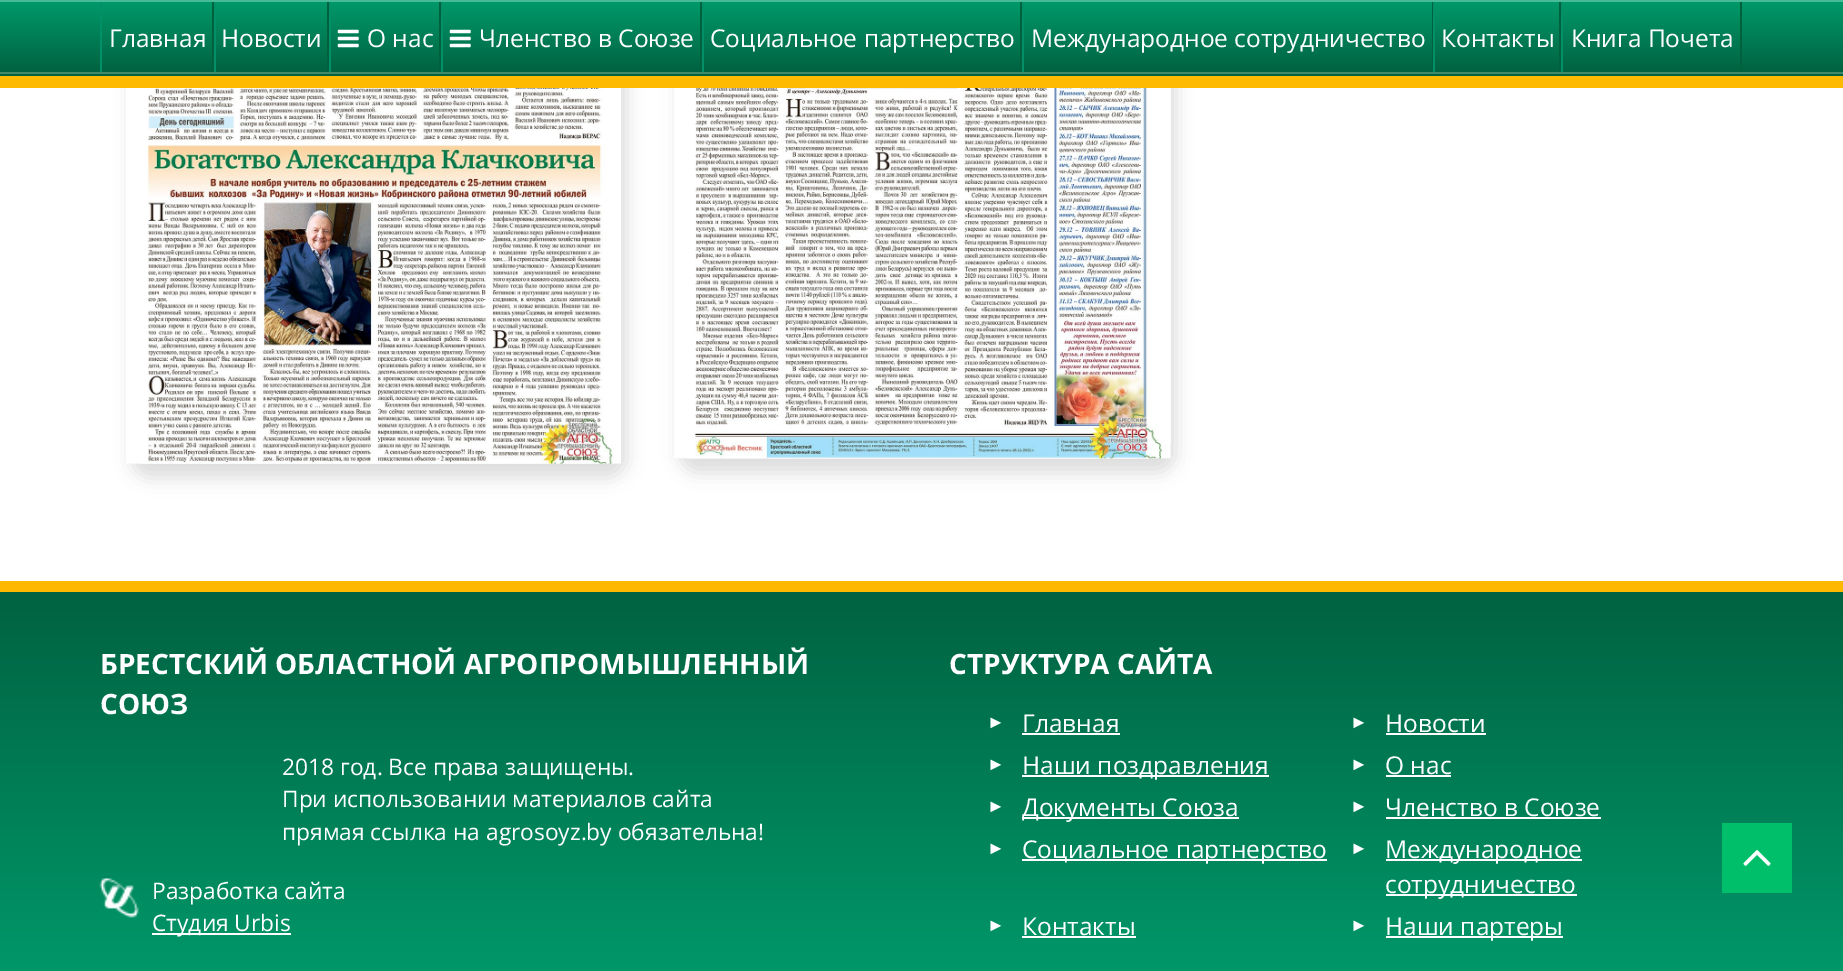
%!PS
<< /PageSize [1843 971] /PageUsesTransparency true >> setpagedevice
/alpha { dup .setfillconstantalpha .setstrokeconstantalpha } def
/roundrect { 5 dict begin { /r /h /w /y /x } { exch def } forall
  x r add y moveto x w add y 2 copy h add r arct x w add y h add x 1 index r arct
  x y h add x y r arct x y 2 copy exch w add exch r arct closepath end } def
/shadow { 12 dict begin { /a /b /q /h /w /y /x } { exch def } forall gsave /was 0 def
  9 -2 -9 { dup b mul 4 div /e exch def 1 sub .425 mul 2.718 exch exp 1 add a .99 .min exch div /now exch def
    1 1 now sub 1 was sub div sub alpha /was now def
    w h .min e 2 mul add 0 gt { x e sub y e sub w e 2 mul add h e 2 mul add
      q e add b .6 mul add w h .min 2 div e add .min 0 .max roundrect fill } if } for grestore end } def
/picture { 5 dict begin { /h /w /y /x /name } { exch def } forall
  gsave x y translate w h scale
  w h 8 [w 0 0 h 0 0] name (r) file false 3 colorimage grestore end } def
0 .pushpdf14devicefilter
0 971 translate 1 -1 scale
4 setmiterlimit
1 setgray
0 0 1843 971 rectfill
0 setgray
131 -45 496 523 18 9 0.14 shadow
(img1.rgb) 126 88 495 376 picture
679 -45 497 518 18 9 0.14 shadow
(img2.rgb) 674 88 497 371 picture
gsave newpath 0 2 moveto 1843 2 lineto 1843 72 lineto 0 72 lineto closepath clip newpath
<< /ShadingType 2 /ColorSpace /DeviceRGB /Coords [922 1.7 922 72] /Extend [true true] /Function << /FunctionType 2 /Domain [0 1] /C0 [0 0.6 0.412] /C1 [0 0.384 0.255] /N 1 >> >> shfill grestore
0.278 0.733 0.592 setrgbcolor
0 0 1843 2 rectfill
0.255 0.537 0.412 setrgbcolor
0 72 1843 2 rectfill
0 0.38 0.235 setrgbcolor
212 2 2 70 rectfill
0.008 0.565 0.408 setrgbcolor
100 2 2 70 rectfill
/OpenSans-Regular [24.5 0 0 -24.5 0 0] selectfont
1 setgray
109 47 moveto (Главная) show
0 0.38 0.235 setrgbcolor
327 2 2 70 rectfill
0.008 0.565 0.408 setrgbcolor
214 2 2 70 rectfill
1 setgray
221 47 moveto (Новости) show
0 0.38 0.235 setrgbcolor
439 2 2 70 rectfill
0.008 0.565 0.408 setrgbcolor
329 2 2 70 rectfill
(img3.rgb) 337 29 22 19 picture
1 setgray
367 47 moveto (О нас) show
0 0.38 0.235 setrgbcolor
700 2 2 70 rectfill
0.008 0.565 0.408 setrgbcolor
441 2 2 70 rectfill
(img3.rgb) 449 29 22 19 picture
1 setgray
479 47 moveto (Членство в Союзе) show
0 0.38 0.235 setrgbcolor
1020 2 2 70 rectfill
0.008 0.565 0.408 setrgbcolor
702 2 2 70 rectfill
1 setgray
710 47 moveto (Социальное партнерство) show
0 0.38 0.235 setrgbcolor
1432 2 1 70 rectfill
0.008 0.565 0.408 setrgbcolor
1022 2 2 70 rectfill
1 setgray
1031 47 moveto (Международное сотрудничество) show
0 0.38 0.235 setrgbcolor
1559 2 2 70 rectfill
0.008 0.565 0.408 setrgbcolor
1433 2 2 70 rectfill
1 setgray
1441 47 moveto (Контакты) show
0 0.38 0.235 setrgbcolor
1740 2 2 70 rectfill
0.008 0.565 0.408 setrgbcolor
1561 2 2 70 rectfill
1 setgray
1571 47 moveto (Книга Почета) show
0.992 0.729 0 setrgbcolor
0 76 1843 12 rectfill
0 0.384 0.255 setrgbcolor
0 74 1843 2 rectfill
gsave newpath 0 592 moveto 1843 592 lineto 1843 971 lineto 0 971 lineto closepath clip newpath
<< /ShadingType 2 /ColorSpace /DeviceRGB /Coords [922 591 922 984] /Extend [true true] /Function << /FunctionType 2 /Domain [0 1] /C0 [0 0.384 0.255] /C1 [0 0.6 0.412] /N 1 >> >> shfill grestore
1 0.722 0 setrgbcolor
0 581 1843 11 rectfill
/OpenSans-Bold [28 0 0 -28 0 0] selectfont
1 setgray
100 674 moveto (БРЕСТСКИЙ ОБЛАСТНОЙ АГРОПРОМЫШЛЕННЫЙ) show
100 714 moveto (СОЮЗ) show
/OpenSans-Regular [22.75 0 0 -22.75 0 0] selectfont
282 775 moveto (2018 год. Все права защищены.) show
282 807 moveto (При использовании материалов сайта) show
282 840 moveto (прямая ссылка на agrosoyz.by обязательна!) show
(img4.rgb) 99 878 40 40 picture
152 899 moveto (Разработка сайта) show
152 933 139 2 rectfill
152 931 moveto (Студия Urbis) show
/OpenSans-Bold [28 0 0 -28 0 0] selectfont
949 674 moveto (СТРУКТУРА САЙТА) show
/LiberationSans-Regular [18 0 0 -18 0 0] selectfont
987 728 moveto (►) show
/OpenSans-Regular [24.5 0 0 -24.5 0 0] selectfont
1022 732 moveto (Главная) show
1022 733 98 2 rectfill
/LiberationSans-Regular [18 0 0 -18 0 0] selectfont
1350 728 moveto (►) show
/OpenSans-Regular [24.5 0 0 -24.5 0 0] selectfont
1385 732 moveto (Новости) show
1386 733 100 2 rectfill
/LiberationSans-Regular [18 0 0 -18 0 0] selectfont
987 770 moveto (►) show
1022 775 247 2 rectfill
/OpenSans-Regular [24.5 0 0 -24.5 0 0] selectfont
1022 774 moveto (Наши поздравления) show
/LiberationSans-Regular [18 0 0 -18 0 0] selectfont
1350 770 moveto (►) show
/OpenSans-Regular [24.5 0 0 -24.5 0 0] selectfont
1385 774 moveto (О нас) show
1386 775 65 2 rectfill
/LiberationSans-Regular [18 0 0 -18 0 0] selectfont
987 812 moveto (►) show
1022 817 217 2 rectfill
/OpenSans-Regular [24.5 0 0 -24.5 0 0] selectfont
1022 816 moveto (Документы Союза) show
/LiberationSans-Regular [18 0 0 -18 0 0] selectfont
1350 812 moveto (►) show
/OpenSans-Regular [24.5 0 0 -24.5 0 0] selectfont
1385 816 moveto (Членство в Союзе) show
1386 817 215 2 rectfill
/LiberationSans-Regular [18 0 0 -18 0 0] selectfont
987 854 moveto (►) show
1022 859 305 2 rectfill
/OpenSans-Regular [24.5 0 0 -24.5 0 0] selectfont
1022 858 moveto (Социальное партнерство) show
/LiberationSans-Regular [18 0 0 -18 0 0] selectfont
1350 854 moveto (►) show
1386 859 196 2 rectfill
/OpenSans-Regular [24.5 0 0 -24.5 0 0] selectfont
1385 858 moveto (Международное) show
1386 894 191 2 rectfill
1385 893 moveto (сотрудничество) show
/LiberationSans-Regular [18 0 0 -18 0 0] selectfont
987 931 moveto (►) show
/OpenSans-Regular [24.5 0 0 -24.5 0 0] selectfont
1022 935 moveto (Контакты) show
1022 936 114 2 rectfill
/LiberationSans-Regular [18 0 0 -18 0 0] selectfont
1350 931 moveto (►) show
1386 936 177 2 rectfill
/OpenSans-Regular [24.5 0 0 -24.5 0 0] selectfont
1385 935 moveto (Наши партеры) show
0 0.749 0.416 setrgbcolor
1722 823 70 70 rectfill
(img5.rgb) 1743 850 28 16 picture
.poppdf14devicefilter showpage
